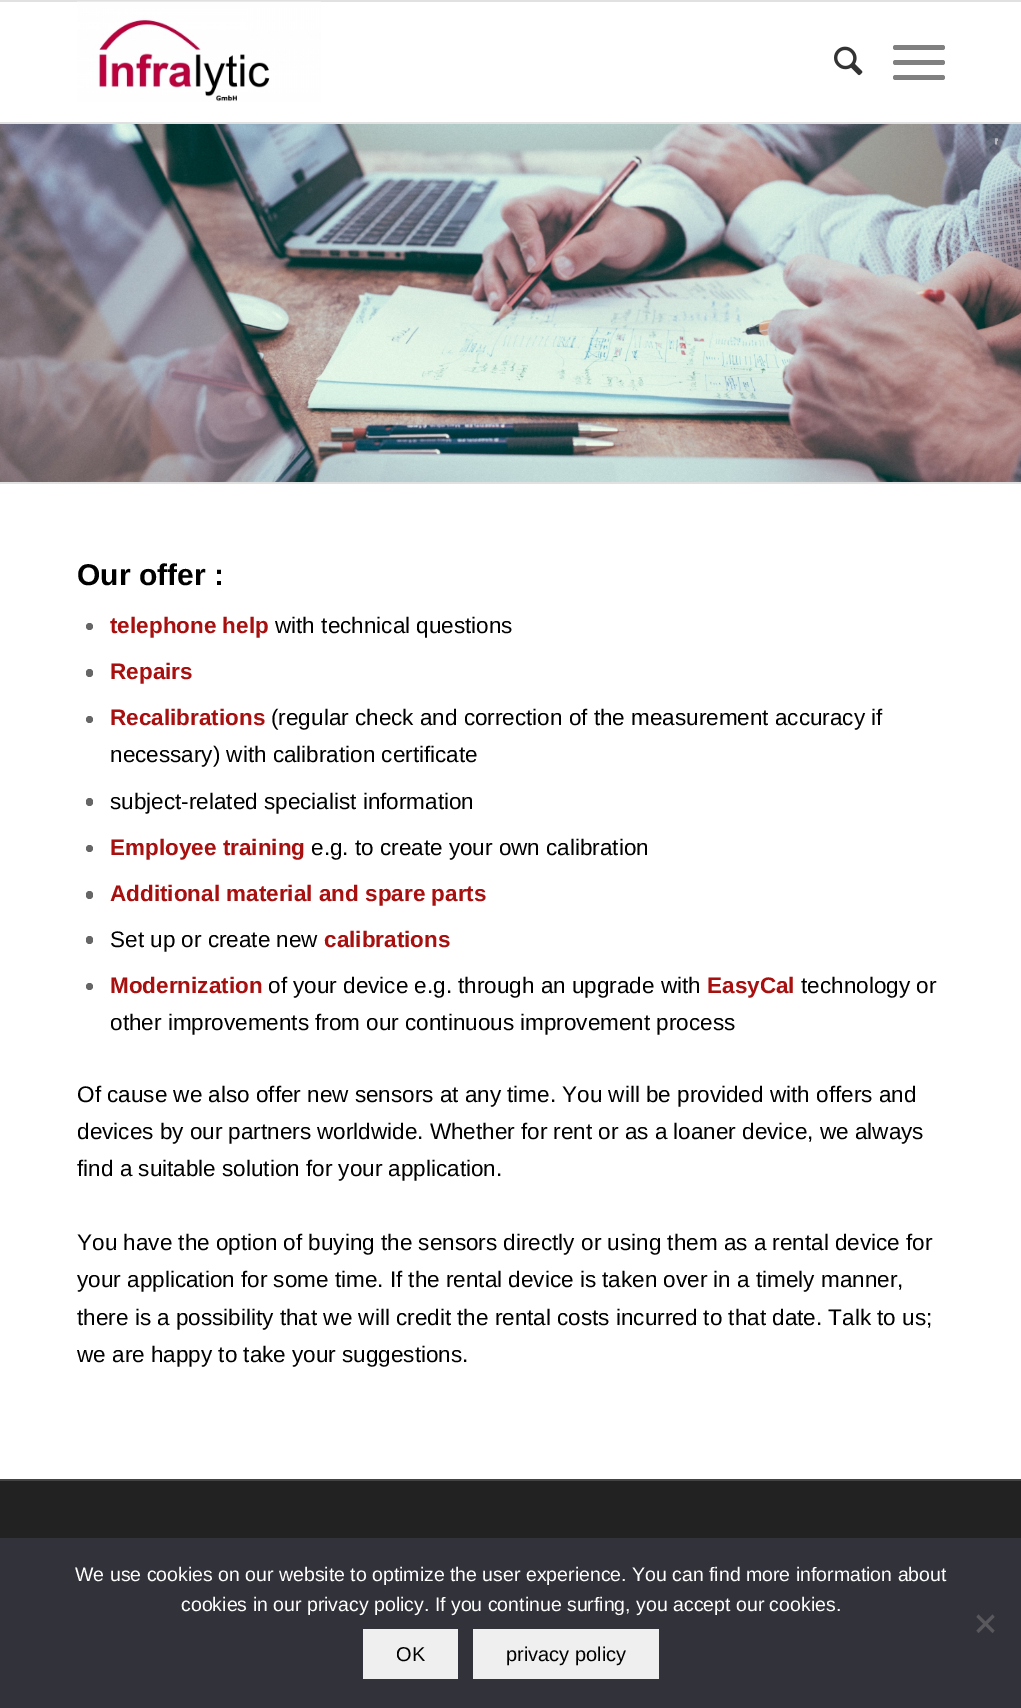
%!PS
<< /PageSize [1021 1708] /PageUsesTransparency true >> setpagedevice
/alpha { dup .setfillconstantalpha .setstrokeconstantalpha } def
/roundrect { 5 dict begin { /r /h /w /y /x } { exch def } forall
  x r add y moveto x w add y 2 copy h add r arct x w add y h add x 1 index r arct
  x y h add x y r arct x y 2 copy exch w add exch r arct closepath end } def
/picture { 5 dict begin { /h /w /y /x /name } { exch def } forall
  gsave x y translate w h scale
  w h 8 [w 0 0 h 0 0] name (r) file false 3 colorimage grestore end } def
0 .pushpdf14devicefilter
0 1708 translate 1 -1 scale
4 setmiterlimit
1 setgray
0 0 1021 1708 rectfill
0.882 setgray
0 0 1021 2 rectfill
0 122 1021 2 rectfill
(img1.rgb) 77 1 244 101 picture
(img2.rgb) 834 46 29 30 picture
0.502 setgray
893 60 52 5 2.5 roundrect fill
893 45 52 5 2.5 roundrect fill
893 75 52 5 2.5 roundrect fill
(img3.rgb) 0 124 1021 358 picture
0.13 alpha
0.882 setgray
6 setlinewidth
newpath 995 150 9 0 360 arc closepath stroke
gsave
995 138 12 24 rectclip
newpath 986 135.5 moveto 997.5 138.5 lineto 991.5 161.5 lineto 980 158.5 lineto closepath clip newpath
0.65 alpha
newpath 997 141.5 moveto 1008 144.5 1003.5 161.5 992 158.5 curveto 981 155.5 985.5 138.5 997 141.5 curveto closepath stroke
grestore
1 alpha
0 482 1021 2 rectfill
/LiberationSans-Bold [30 0 0 -30 0 0] selectfont
0 setgray
77 585 moveto (Our offer :) show
0.4 setgray
newpath 89.5 626.5 3.5 0 360 arc closepath fill
/LiberationSans-Bold [22.5 0 0 -22.5 0 0] selectfont
0.659 0.063 0.063 setrgbcolor
110 633 moveto (telephone help) show
/LiberationSans-Regular [22.5 0 0 -22.5 0 0] selectfont
0 setgray
275 633 moveto (with technical questions) show
0.4 setgray
86 669 7 8 3.5 roundrect fill
/LiberationSans-Bold [22.5 0 0 -22.5 0 0] selectfont
0.659 0.063 0.063 setrgbcolor
110 679 moveto (Repairs) show
0.4 setgray
newpath 89.5 719.5 3.5 0 360 arc closepath fill
0.659 0.063 0.063 setrgbcolor
110 725 moveto (Recalibrations) show
/LiberationSans-Regular [22.5 0 0 -22.5 0 0] selectfont
0 setgray
271 725 moveto (\(regular check and correction of the measurement accuracy if) show
110 762 moveto (necessary\) with calibration certificate) show
0.4 setgray
86 798 7 8 3.5 roundrect fill
0 setgray
110 809 moveto (subject-related specialist information) show
0.4 setgray
newpath 89.5 848.5 3.5 0 360 arc closepath fill
/LiberationSans-Bold [22.5 0 0 -22.5 0 0] selectfont
0.659 0.063 0.063 setrgbcolor
110 855 moveto (Employee training) show
/LiberationSans-Regular [22.5 0 0 -22.5 0 0] selectfont
0 setgray
311 855 moveto (e.g. to create your own calibration) show
0.4 setgray
86 891 7 8 3.5 roundrect fill
/LiberationSans-Bold [22.5 0 0 -22.5 0 0] selectfont
0.659 0.063 0.063 setrgbcolor
110 901 moveto (Additional material and spare parts) show
0.4 setgray
86 936 7 8 3.5 roundrect fill
/LiberationSans-Regular [22.5 0 0 -22.5 0 0] selectfont
0 setgray
110 947 moveto (Set up or create new) show
/LiberationSans-Bold [22.5 0 0 -22.5 0 0] selectfont
0.659 0.063 0.063 setrgbcolor
324 947 moveto (calibrations) show
0.4 setgray
newpath 89.5 986.5 3.5 0 360 arc closepath fill
0.659 0.063 0.063 setrgbcolor
110 993 moveto (Modernization) show
/LiberationSans-Regular [22.5 0 0 -22.5 0 0] selectfont
0 setgray
268 993 moveto (of your device e.g. through an upgrade with) show
/LiberationSans-Bold [22.5 0 0 -22.5 0 0] selectfont
0.659 0.063 0.063 setrgbcolor
707 993 moveto (EasyCal) show
/LiberationSans-Regular [22.5 0 0 -22.5 0 0] selectfont
0 setgray
801 993 moveto (technology or) show
110 1030 moveto (other improvements from our continuous improvement process) show
77 1102 moveto (Of cause we also offer new sensors at any time. You will be provided with offers and) show
77 1139 moveto (devices by our partners worldwide. Whether for rent or as a loaner device, we always) show
77 1176 moveto (find a suitable solution for your application.) show
77 1250 moveto (You have the option of buying the sensors directly or using them as a rental device for) show
77 1287 moveto (your application for some time. If the rental device is taken over in a timely manner,) show
77 1325 moveto (there is a possibility that we will credit the rental costs incurred to that date. Talk to us;) show
77 1362 moveto (we are happy to take your suggestions.) show
0.133 setgray
0 1481 1021 57 rectfill
0.267 setgray
0 1479 1021 2 rectfill
0.196 0.196 0.227 setrgbcolor
0 1538 1021 170 rectfill
/LiberationSans-Regular [19.5 0 0 -19.5 0 0] selectfont
1 setgray
75 1581 moveto (We use cookies on our website to optimize the user experience. You can find more information about) show
181 1611 moveto (cookies in our privacy policy. If you continue surfing, you accept our cookies.) show
0.349 0.349 0.365 setrgbcolor
newpath 992.5 1614.5 moveto 994.5 1617 lineto 978.5 1633 lineto 976.5 1630.5 lineto closepath fill
newpath 976.5 1617 moveto 978.5 1614.5 lineto 994.5 1630.5 lineto 992.5 1633 lineto closepath fill
0.937 setgray
363 1629 95 50 rectfill
/LiberationSans-Regular [20 0 0 -20 0 0] selectfont
0 setgray
396 1661 moveto (OK) show
0.937 setgray
473 1629 186 50 rectfill
0 setgray
506 1661 moveto (privacy policy) show
.poppdf14devicefilter showpage
